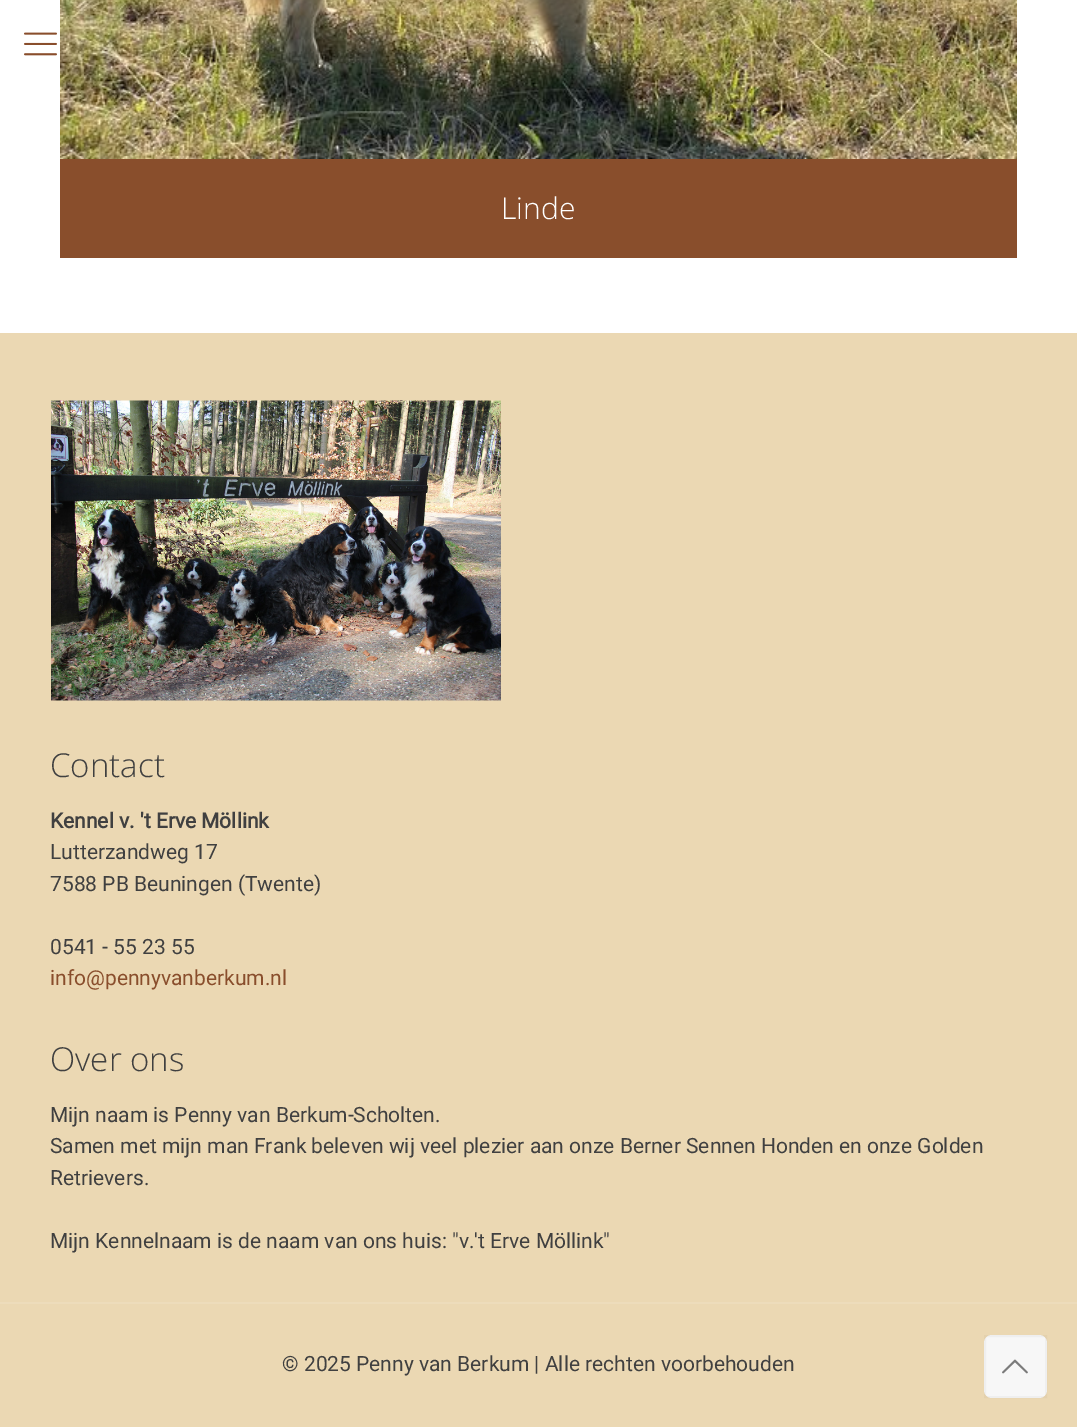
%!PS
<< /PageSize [1077 1427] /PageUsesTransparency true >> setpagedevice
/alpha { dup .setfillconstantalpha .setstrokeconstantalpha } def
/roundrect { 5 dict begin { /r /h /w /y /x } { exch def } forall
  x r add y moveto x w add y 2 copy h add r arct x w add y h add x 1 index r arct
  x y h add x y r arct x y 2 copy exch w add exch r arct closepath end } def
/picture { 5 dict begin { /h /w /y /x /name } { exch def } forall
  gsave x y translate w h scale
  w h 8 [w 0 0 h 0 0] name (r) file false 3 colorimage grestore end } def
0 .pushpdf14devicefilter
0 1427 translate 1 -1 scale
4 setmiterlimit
1 setgray
0 0 1077 1427 rectfill
(img1.rgb) 24 32 33 24 picture
(img2.rgb) 60 0 957 159 picture
0.537 0.306 0.173 setrgbcolor
60 159 957 99 rectfill
/OpenSans-Light [30 0 0 -30 0 0] selectfont
1 setgray
501 219 moveto (Linde) show
0.922 0.847 0.702 setrgbcolor
0 333 1077 1094 rectfill
(img3.rgb) 51 400 450 301 picture
/OpenSans-Light [33 0 0 -33 0 0] selectfont
0.251 setgray
50 777 moveto (Contact) show
/Roboto-Bold [21 0 0 -21 0 0] selectfont
50 828 moveto (Kennel v. 't Erve Möllink) show
/Roboto-Regular [21 0 0 -21 0 0] selectfont
50 859 moveto (Lutterzandweg 17) show
50 891 moveto (7588 PB Beuningen \(Twente\)) show
50 954 moveto (0541 - 55 23 55) show
0.537 0.306 0.173 setrgbcolor
50 985 moveto (info@pennyvanberkum.nl) show
/OpenSans-Light [33 0 0 -33 0 0] selectfont
0.251 setgray
50 1071 moveto (Over ons) show
/Roboto-Regular [21 0 0 -21 0 0] selectfont
50 1122 moveto (Mijn naam is Penny van Berkum-Scholten.) show
50 1153 moveto (Samen met mijn man Frank beleven wij veel plezier aan onze Berner Sennen Honden en onze Golden) show
50 1185 moveto (Retrievers.) show
50 1248 moveto (Mijn Kennelnaam is de naam van ons huis: "v.'t Erve Möllink") show
0.929 0.863 0.733 setrgbcolor
0 1302 1077 2 rectfill
0.251 setgray
282 1371 moveto (© 2025 Penny van Berkum | Alle rechten voorbehouden) show
0.969 setgray
984 1335 63 63 8 roundrect fill
0.03 alpha
0 setgray
2 setlinewidth
985 1336 61 61 rectstroke
1 alpha
(img4.rgb) 1002 1359 26 15 picture
.poppdf14devicefilter showpage
